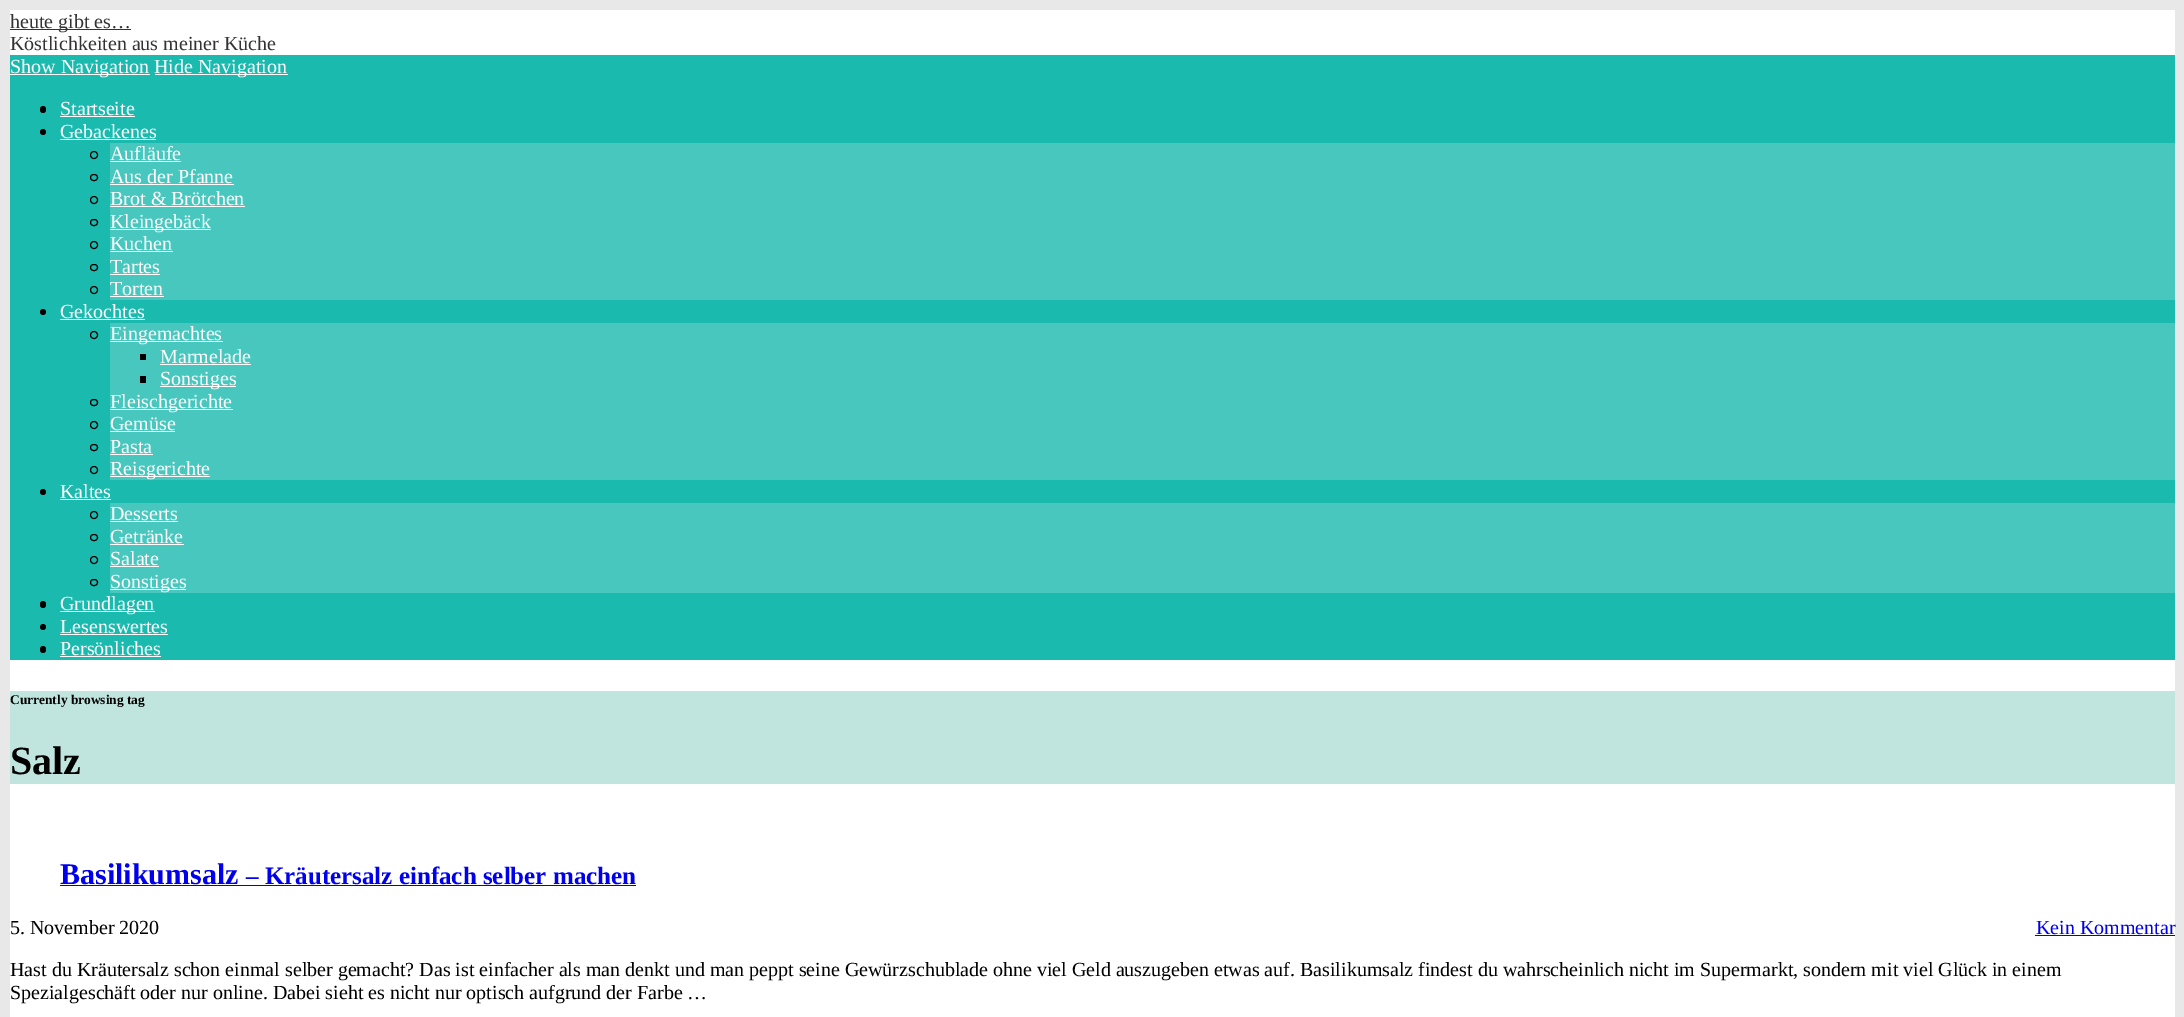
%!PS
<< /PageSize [2184 1017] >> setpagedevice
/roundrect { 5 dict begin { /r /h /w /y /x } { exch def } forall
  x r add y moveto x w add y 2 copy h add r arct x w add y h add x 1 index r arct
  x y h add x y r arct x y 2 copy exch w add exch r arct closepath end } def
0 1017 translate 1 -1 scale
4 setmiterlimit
0.91 setgray
0 0 2184 1017 rectfill
1 setgray
10 10 2165 1007 rectfill
0.2 setgray
10 29 121 1 rectfill
/LiberationSerif-Regular [20 0 0 -20 0 0] selectfont
10 28 moveto (heute gibt es…) show
10 50 moveto (Köstlichkeiten aus meiner Küche) show
0.102 0.729 0.686 setrgbcolor
10 55 2165 605 rectfill
1 setgray
10 74 140 1 rectfill
10 73 moveto (Show Navigation) show
155 74 133 1 rectfill
154 73 moveto (Hide Navigation) show
0 setgray
40 106 6 7 3 roundrect fill
1 setgray
60 115 moveto (Startseite) show
60 116 75 1 rectfill
0 setgray
newpath 43 132 3 0 360 arc closepath fill
1 setgray
60 138 moveto (Gebackenes) show
60 139 96 1 rectfill
0.278 0.78 0.745 setrgbcolor
110 143 2065 157 rectfill
0 setgray
newpath 94 155 3.5 0 360 arc closepath stroke
1 setgray
110 160 moveto (Aufläufe) show
110 161 71 1 rectfill
0 setgray
90.5 174.5 7 6 3 roundrect stroke
1 setgray
110 183 moveto (Aus der Pfanne) show
110 184 124 1 rectfill
0 setgray
newpath 94 200 3.5 0 360 arc closepath stroke
1 setgray
110 205 moveto (Brot & Brötchen) show
110 206 135 1 rectfill
0 setgray
90.5 219.5 7 6 3 roundrect stroke
1 setgray
110 229 101 1 rectfill
110 228 moveto (Kleingebäck) show
0 setgray
newpath 94 245 3.5 0 360 arc closepath stroke
1 setgray
110 250 moveto (Kuchen) show
110 251 63 1 rectfill
0 setgray
90.5 264.5 7 6 3 roundrect stroke
1 setgray
110 273 moveto (Tartes) show
110 274 50 1 rectfill
0 setgray
newpath 94 290 3.5 0 360 arc closepath stroke
1 setgray
110 295 moveto (Torten) show
110 296 54 1 rectfill
0 setgray
newpath 43 312 3 0 360 arc closepath fill
1 setgray
60 318 moveto (Gekochtes) show
60 319 85 1 rectfill
0.278 0.78 0.745 setrgbcolor
110 323 2065 157 rectfill
0 setgray
newpath 94 335 3.5 0 360 arc closepath stroke
1 setgray
110 341 113 1 rectfill
110 340 moveto (Eingemachtes) show
0 setgray
140 354 6 6 rectfill
1 setgray
160 363 moveto (Marmelade) show
160 364 91 1 rectfill
0 setgray
140 376 6 7 rectfill
1 setgray
160 386 76 1 rectfill
160 385 moveto (Sonstiges) show
0 setgray
90.5 399.5 7 6 3 roundrect stroke
1 setgray
110 409 123 1 rectfill
110 408 moveto (Fleischgerichte) show
0 setgray
newpath 94 425 3.5 0 360 arc closepath stroke
1 setgray
110 430 moveto (Gemüse) show
110 431 65 1 rectfill
0 setgray
90.5 444.5 7 6 3 roundrect stroke
1 setgray
110 453 moveto (Pasta) show
110 454 43 1 rectfill
0 setgray
newpath 94 470 3.5 0 360 arc closepath stroke
1 setgray
110 476 100 1 rectfill
110 475 moveto (Reisgerichte) show
0 setgray
newpath 43 492 3 0 360 arc closepath fill
1 setgray
60 498 moveto (Kaltes) show
60 499 51 1 rectfill
0.278 0.78 0.745 setrgbcolor
110 503 2065 90 rectfill
0 setgray
newpath 94 515 3.5 0 360 arc closepath stroke
1 setgray
110 520 moveto (Desserts) show
110 521 68 1 rectfill
0 setgray
90.5 534.5 7 6 3 roundrect stroke
1 setgray
110 543 moveto (Getränke) show
110 544 74 1 rectfill
0 setgray
newpath 94 560 3.5 0 360 arc closepath stroke
1 setgray
110 565 moveto (Salate) show
110 566 49 1 rectfill
0 setgray
90.5 579.5 7 6 3 roundrect stroke
1 setgray
110 589 76 1 rectfill
110 588 moveto (Sonstiges) show
0 setgray
40 601 6 7 3 roundrect fill
1 setgray
60 611 95 1 rectfill
60 610 moveto (Grundlagen) show
0 setgray
newpath 43 627 3 0 360 arc closepath fill
1 setgray
60 633 moveto (Lesenswertes) show
60 634 108 1 rectfill
0 setgray
40 646 6 7 3 roundrect fill
1 setgray
60 655 moveto (Persönliches) show
60 656 101 1 rectfill
0.753 0.898 0.871 setrgbcolor
10 691 2165 93 rectfill
/LiberationSerif-Bold [13.4 0 0 -13.4 0 0] selectfont
0 setgray
10 704 moveto (Currently browsing tag) show
/LiberationSerif-Bold [40 0 0 -40 0 0] selectfont
10 774 moveto (Salz) show
/LiberationSerif-Bold [30 0 0 -30 0 0] selectfont
0 0 0.933 setrgbcolor
60 884 moveto (Basilikumsalz) show
60 885 576 1 rectfill
/LiberationSerif-Bold [25 0 0 -25 0 0] selectfont
246 884 moveto (– Kräutersalz einfach selber machen) show
/LiberationSerif-Regular [20 0 0 -20 0 0] selectfont
0 setgray
10 934 moveto (5. November 2020) show
0 0 0.933 setrgbcolor
2036 934 moveto (Kein Kommentar) show
2035 935 140 1 rectfill
0 setgray
10 976 moveto (Hast du Kräutersalz schon einmal selber gemacht? Das ist einfacher als man denkt und man peppt seine Gewürzschublade ohne viel Geld auszugeben etwas auf. Basilikumsalz findest du wahrscheinlich nicht im Supermarkt, sondern mit viel Glück in einem) show
10 999 moveto (Spezialgeschäft oder nur online. Dabei sieht es nicht nur optisch aufgrund der Farbe …) show
showpage
